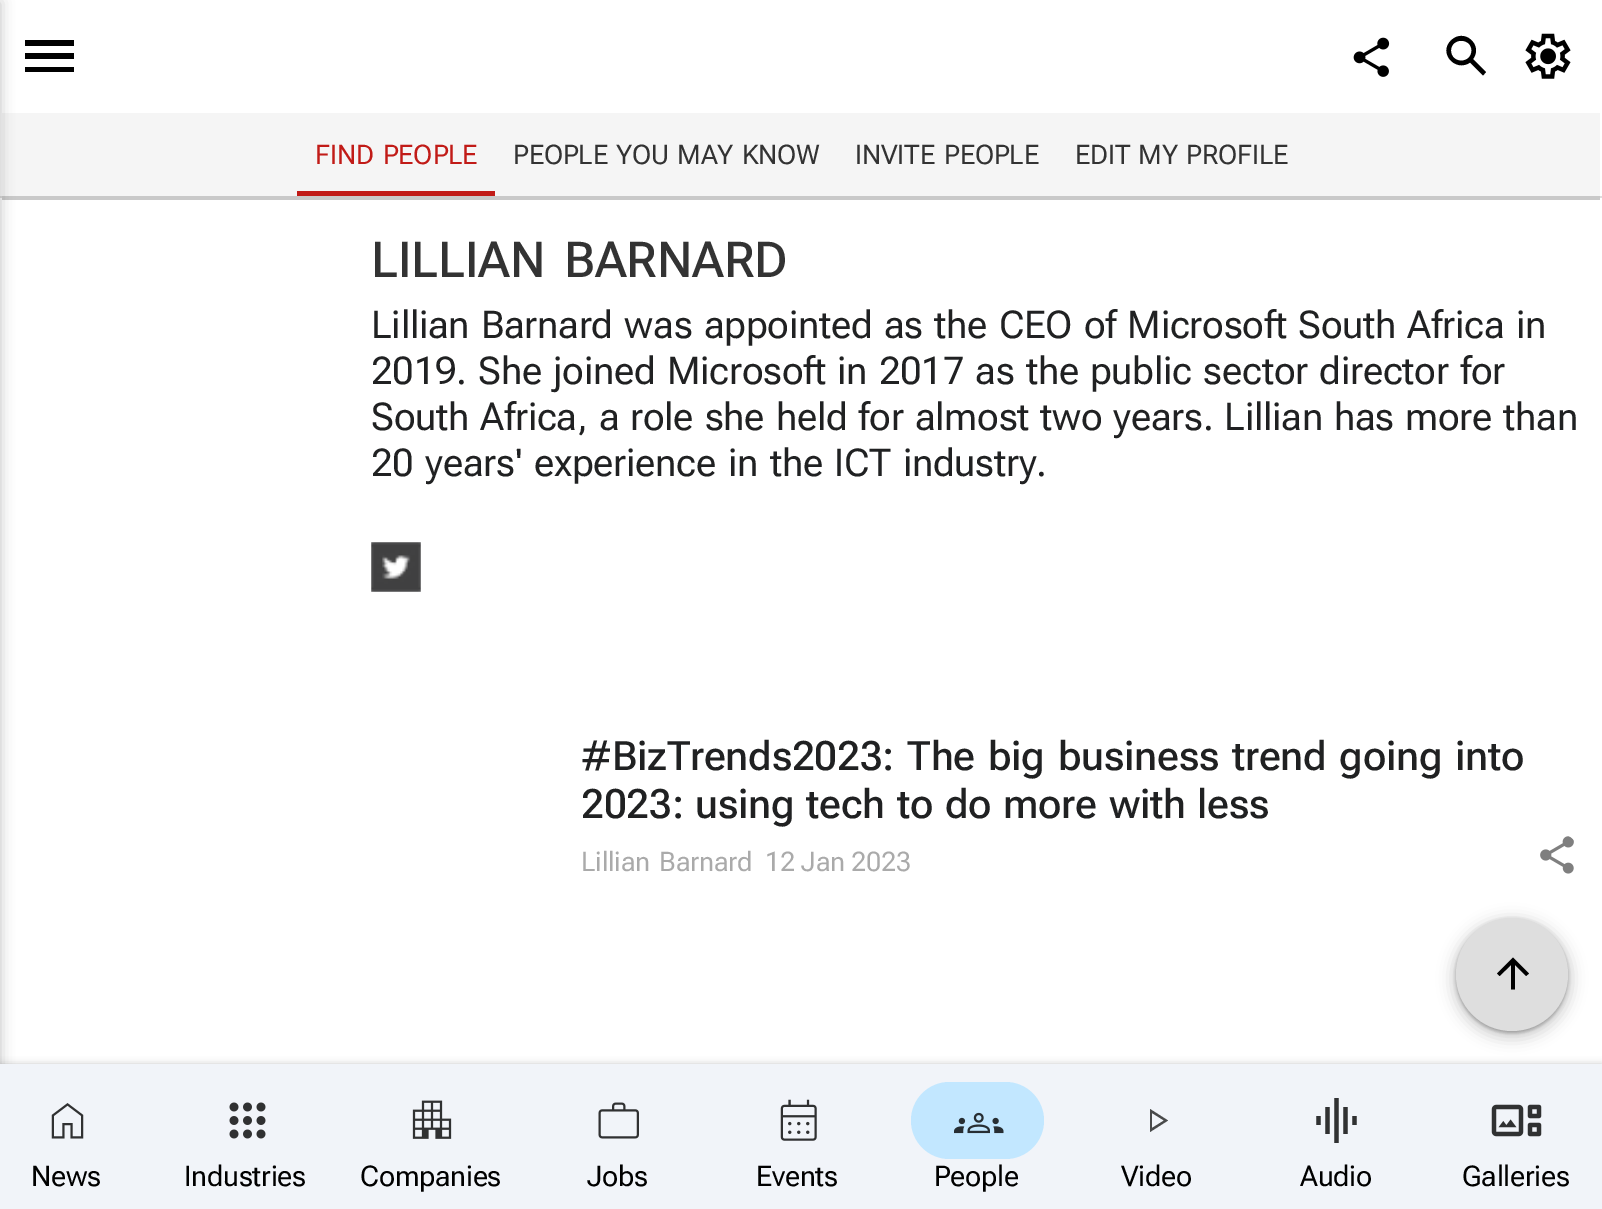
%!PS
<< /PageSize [1602 1209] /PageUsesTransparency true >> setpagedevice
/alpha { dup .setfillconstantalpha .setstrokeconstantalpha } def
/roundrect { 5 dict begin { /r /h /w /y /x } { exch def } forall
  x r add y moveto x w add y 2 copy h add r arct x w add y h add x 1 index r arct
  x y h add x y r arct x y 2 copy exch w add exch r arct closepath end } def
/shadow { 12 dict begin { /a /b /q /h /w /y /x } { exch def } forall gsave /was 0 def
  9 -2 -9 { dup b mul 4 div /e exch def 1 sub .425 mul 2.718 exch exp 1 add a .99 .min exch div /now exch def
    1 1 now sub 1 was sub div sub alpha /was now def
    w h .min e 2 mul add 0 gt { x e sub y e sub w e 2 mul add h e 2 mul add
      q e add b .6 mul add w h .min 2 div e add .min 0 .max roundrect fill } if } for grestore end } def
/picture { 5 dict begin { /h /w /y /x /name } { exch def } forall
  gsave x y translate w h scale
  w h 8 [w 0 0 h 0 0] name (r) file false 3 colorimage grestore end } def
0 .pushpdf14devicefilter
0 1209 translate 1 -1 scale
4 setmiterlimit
1 setgray
0 0 1602 1209 rectfill
0.867 setgray
0 196 1602 2 rectfill
0.961 setgray
2 113 1598 83 rectfill
0.788 setgray
2 196 1598 4 rectfill
0.125 0.129 0.141 setrgbcolor
-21 2 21 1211 0 7 0.28 shadow
0 setgray
newpath 25 72 moveto 25 67 lineto 74 67 lineto 74 72 lineto closepath 25 59 moveto 25 53 lineto 74 53 lineto 74 59 lineto closepath 25 46 moveto 25 40 lineto 74 40 lineto 74 46 lineto closepath fill
(img1.rgb) 1353 37 37 40 picture
newpath 1486 72 moveto 1473 59 lineto 1483.5 45 1464 27.5 1451 40.5 curveto 1438 53 1455.5 72.5 1470 62.5 curveto 1483 75.5 lineto closepath 1451 50.5 moveto 1451 37.5 1471.5 37.5 1471.5 50.5 curveto 1471.5 64 1451 64 1451 50.5 curveto closepath fill
(img2.rgb) 1525 33 46 46 picture
0.757 0.106 0.09 setrgbcolor
297 191 198 5 rectfill
/RobotoFlex-Regular [27 0 0 -27 0 0] selectfont
315 164 moveto 3 0 32 -0.23 0 (FIND PEOPLE) awidthshow
0.2 setgray
513 164 moveto 2 0 32 -0.23 0 (PEOPLE YOU MAY KNOW) awidthshow
855 164 moveto 3 0 32 -0.23 0 (INVITE PEOPLE) awidthshow
1075 164 moveto 2 0 32 -0.23 0 (EDIT MY PROFILE) awidthshow
/RobotoFlex-Medium [49.5 0 0 -49.5 0 0] selectfont
371 277 moveto 7 0 32 -0.23 0 (LILLIAN BARNARD) awidthshow
/RobotoFlex-Regular [38.25 0 0 -38.25 0 0] selectfont
0.125 0.129 0.133 setrgbcolor
371 338 moveto 2.25 0 32 -0.23 0 (Lillian Barnard was appointed as the CEO of Microsoft South Africa in) awidthshow
371 384 moveto 2.1 0 32 -0.23 0 (2019. She joined Microsoft in 2017 as the public sector director for) awidthshow
371 430 moveto 2 0 32 -0.23 0 (South Africa, a role she held for almost two years. Lillian has more than) awidthshow
371 476 moveto 2.5 0 32 -0.23 0 (20 years' experience in the ICT industry.) awidthshow
(img3.rgb) 371 542 50 50 picture
/RobotoFlex-Medium [40.5 0 0 -40.5 0 0] selectfont
581 770 moveto 3.25 0 32 -0.23 0 (#BizTrends2023: The big business trend going into) awidthshow
581 818 moveto 2.1 0 32 -0.23 0 (2023: using tech to do more with less) awidthshow
/RobotoFlex-Regular [27 0 0 -27 0 0] selectfont
0.667 setgray
581 871 moveto 3.25 0 32 -0.23 0 (Lillian Barnard) awidthshow
765 871 moveto -0.23 0 (12 Jan 2023) ashow
(img4.rgb) 1540 836 34 38 picture
0 setgray
1456 920 112 113 56 2 0.3 shadow
1451 918 122 122 61 7 0.15 shadow
0.871 setgray
1456 918 112 113 56 roundrect fill
0 setgray
newpath 1511 965 moveto 1499.5 976 lineto 1497 973.5 lineto 1513 957.5 lineto 1529 973.5 lineto 1526 976 lineto 1515 965 lineto 1515 989.5 lineto 1511 989.5 lineto closepath fill
0 1064 1602 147 0 3.5 0.2 shadow
0.945 0.957 0.976 setrgbcolor
0 1064 1602 145 rectfill
(img5.rgb) 51 1103 33 36 picture
/RobotoFlex-Regular [28.5 0 0 -28.5 0 0] selectfont
0 setgray
31 1186 moveto -0.23 0 (News) ashow
(img6.rgb) 229 1102 37 37 picture
184 1186 moveto -0.23 0 (Industries) ashow
(img7.rgb) 412 1100 40 39 picture
360 1186 moveto -0.23 0 (Companies) ashow
(img8.rgb) 598 1102 41 37 picture
587 1186 moveto -0.23 0 (Jobs) ashow
(img9.rgb) 780 1099 37 42 picture
756 1186 moveto -0.23 0 (Events) ashow
0.761 0.906 1 setrgbcolor
911 1082 133 77 38.5 roundrect fill
(img10.rgb) 954 1112 50 22 picture
0 setgray
934 1186 moveto -0.23 0 (People) ashow
0.286 0.29 0.294 setrgbcolor
newpath 1150 1132 moveto 1150 1109 lineto 1168 1120.5 lineto closepath 1152 1120.5 moveto closepath 1152 1128 moveto 1164 1120.5 lineto 1152 1113 lineto closepath fill
0 setgray
1121 1186 moveto -0.23 0 (Video) ashow
(img11.rgb) 1316 1098 41 45 picture
1300 1186 moveto -0.23 0 (Audio) ashow
(img12.rgb) 1491 1104 51 33 picture
1462 1186 moveto -0.23 0 (Galleries) ashow
.poppdf14devicefilter showpage
